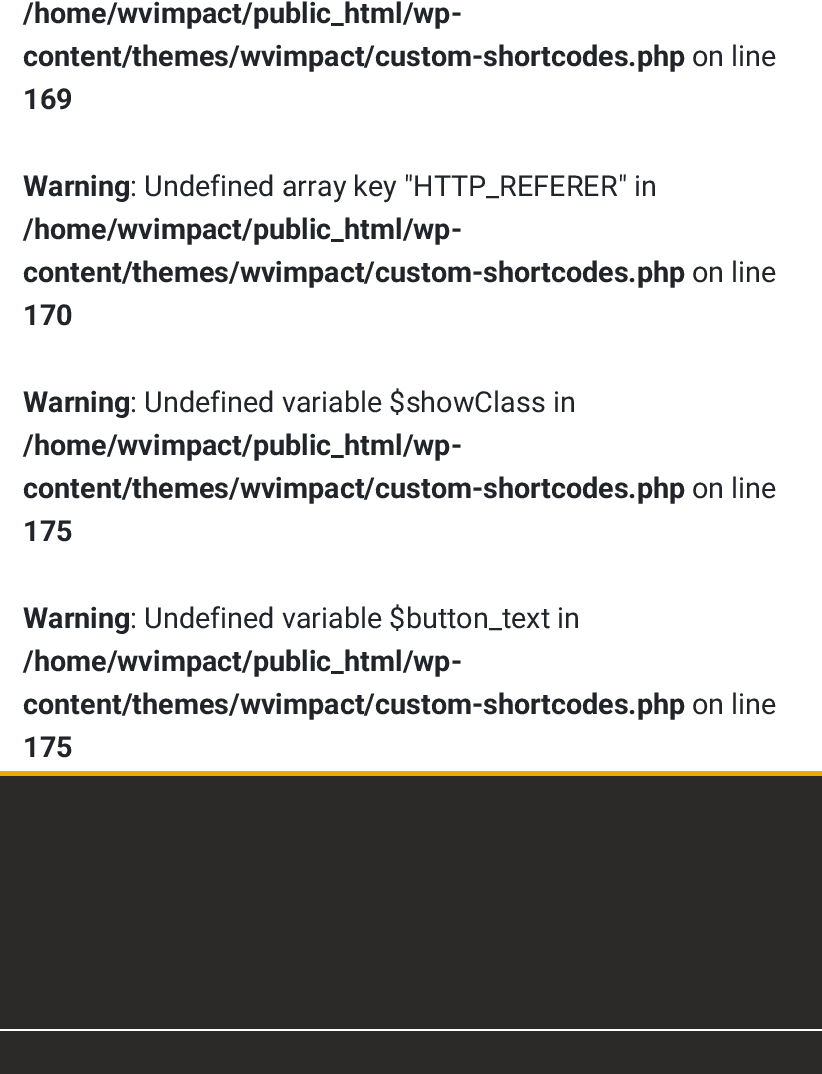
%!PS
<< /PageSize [822 1074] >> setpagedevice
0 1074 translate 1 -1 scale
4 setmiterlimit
1 setgray
0 0 822 1074 rectfill
/Roboto-Bold [28.8 0 0 -28.8 0 0] selectfont
0.129 0.145 0.161 setrgbcolor
23 23 moveto (/home/wvimpact/public_html/wp-) show
23 66 moveto (content/themes/wvimpact/custom-shortcodes.php) show
/Roboto-Regular [28.8 0 0 -28.8 0 0] selectfont
692 66 moveto (on line) show
/Roboto-Bold [28.8 0 0 -28.8 0 0] selectfont
23 109 moveto (169) show
23 196 moveto (Warning) show
/Roboto-Regular [28.8 0 0 -28.8 0 0] selectfont
130 196 moveto (: Undefined array key "HTTP_REFERER" in) show
/Roboto-Bold [28.8 0 0 -28.8 0 0] selectfont
23 239 moveto (/home/wvimpact/public_html/wp-) show
23 282 moveto (content/themes/wvimpact/custom-shortcodes.php) show
/Roboto-Regular [28.8 0 0 -28.8 0 0] selectfont
692 282 moveto (on line) show
/Roboto-Bold [28.8 0 0 -28.8 0 0] selectfont
23 325 moveto (170) show
23 412 moveto (Warning) show
/Roboto-Regular [28.8 0 0 -28.8 0 0] selectfont
130 412 moveto (: Undefined variable $showClass in) show
/Roboto-Bold [28.8 0 0 -28.8 0 0] selectfont
23 455 moveto (/home/wvimpact/public_html/wp-) show
23 498 moveto (content/themes/wvimpact/custom-shortcodes.php) show
/Roboto-Regular [28.8 0 0 -28.8 0 0] selectfont
692 498 moveto (on line) show
/Roboto-Bold [28.8 0 0 -28.8 0 0] selectfont
23 541 moveto (175) show
23 628 moveto (Warning) show
/Roboto-Regular [28.8 0 0 -28.8 0 0] selectfont
130 628 moveto (: Undefined variable $button_text in) show
/Roboto-Bold [28.8 0 0 -28.8 0 0] selectfont
23 671 moveto (/home/wvimpact/public_html/wp-) show
23 714 moveto (content/themes/wvimpact/custom-shortcodes.php) show
/Roboto-Regular [28.8 0 0 -28.8 0 0] selectfont
692 714 moveto (on line) show
/Roboto-Bold [28.8 0 0 -28.8 0 0] selectfont
23 757 moveto (175) show
0.173 0.165 0.161 setrgbcolor
0 776 822 298 rectfill
0.918 0.667 0 setrgbcolor
0 771 822 5 rectfill
1 setgray
0 1029 822 2 rectfill
showpage
